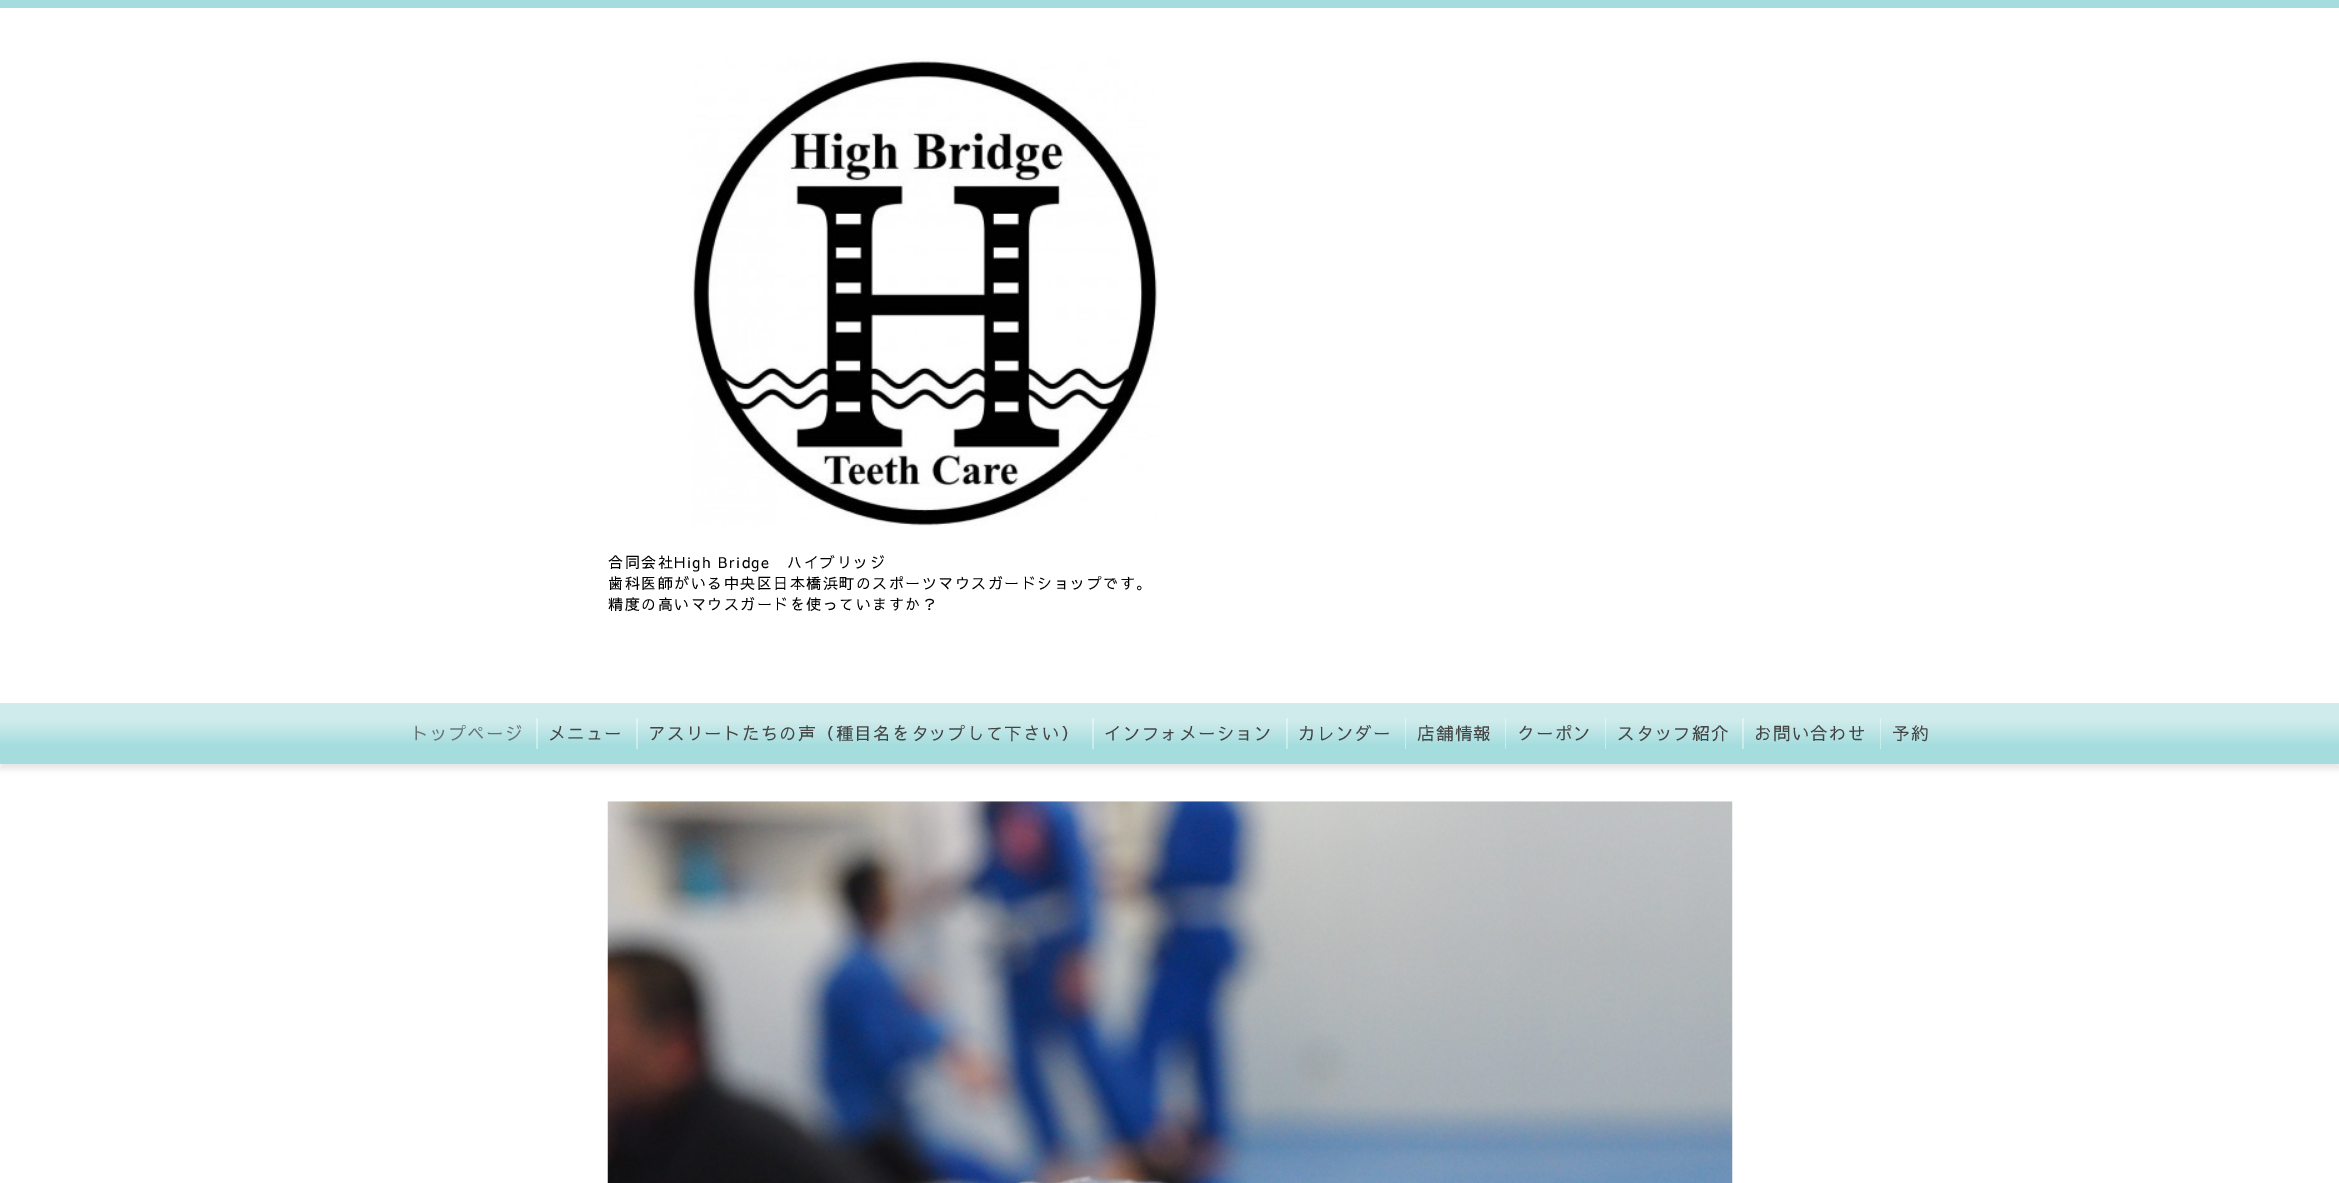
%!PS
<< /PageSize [2339 1183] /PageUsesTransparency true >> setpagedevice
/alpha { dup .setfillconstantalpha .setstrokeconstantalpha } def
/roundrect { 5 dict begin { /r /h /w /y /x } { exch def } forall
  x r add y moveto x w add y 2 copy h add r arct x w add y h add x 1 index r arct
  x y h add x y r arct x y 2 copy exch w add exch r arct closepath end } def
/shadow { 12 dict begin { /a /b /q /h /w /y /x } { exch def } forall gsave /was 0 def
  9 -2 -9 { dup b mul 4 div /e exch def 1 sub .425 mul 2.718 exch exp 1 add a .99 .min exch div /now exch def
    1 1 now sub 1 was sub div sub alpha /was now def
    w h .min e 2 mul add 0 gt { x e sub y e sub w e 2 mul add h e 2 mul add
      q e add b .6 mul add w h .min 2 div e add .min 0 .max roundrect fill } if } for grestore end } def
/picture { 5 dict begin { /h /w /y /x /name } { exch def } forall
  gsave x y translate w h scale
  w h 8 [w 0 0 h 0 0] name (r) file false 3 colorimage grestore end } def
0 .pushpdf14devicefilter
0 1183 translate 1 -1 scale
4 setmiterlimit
1 setgray
0 0 2339 1183 rectfill
0.647 0.867 0.871 setrgbcolor
0 0 2339 8 rectfill
(img1.rgb) 689 58 469 468 picture
/SawarabiGothic-Regular [15 0 0 -15 0 0] selectfont
0 setgray
608 568 moveto 1.5 0 (合同会社High Bridge　ハイブリッジ) ashow
608 589 moveto 1.5 0 (歯科医師がいる中央区日本橋浜町のスポーツマウスガードショップです。) ashow
608 610 moveto 1.5 0 (精度の高いマウスガードを使っていますか？) ashow
0 708 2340 61 0 3 0.1 shadow
gsave newpath 0 703 moveto 2339 703 lineto 2339 764 lineto 0 764 lineto closepath clip newpath
<< /ShadingType 2 /ColorSpace /DeviceRGB /Coords [0 703 0 764] /Extend [true true] /Function << /FunctionType 3 /Domain [0 1] /Functions [<< /FunctionType 2 /Domain [0 1] /C0 [0.812 0.922 0.925] /C1 [0.812 0.922 0.925] /N 1 >> << /FunctionType 2 /Domain [0 1] /C0 [0.812 0.922 0.925] /C1 [0.647 0.867 0.871] /N 1 >> << /FunctionType 2 /Domain [0 1] /C0 [0.647 0.867 0.871] /C1 [0.647 0.867 0.871] /N 1 >>] /Bounds [0.3 0.7] /Encode [0 1 0 1 0 1] >> >> shfill grestore
0.4 alpha
1 setgray
newpath 400 749 moveto 538 749 lineto 538 718 lineto 536 718 lineto 536 749 lineto closepath fill
/SawarabiGothic-Regular [17.5 0 0 -17.5 0 0] selectfont
1 alpha
0.408 0.455 0.455 setrgbcolor
411 740 moveto 1.25 0 (トップページ) ashow
0.4 alpha
1 setgray
newpath 538 749 moveto 638 749 lineto 638 718 lineto 636 718 lineto 636 749 lineto closepath fill
1 alpha
0.267 setgray
548 740 moveto 1.25 0 (メニュー) ashow
0.4 alpha
1 setgray
newpath 638 749 moveto 1094 749 lineto 1094 718 lineto 1092 718 lineto 1092 749 lineto closepath fill
1 alpha
0.267 setgray
648 740 moveto 1.25 0 (アスリートたちの声（種目名をタップして下さい）) ashow
0.4 alpha
1 setgray
newpath 1094 749 moveto 1288 749 lineto 1288 718 lineto 1286 718 lineto 1286 749 lineto closepath fill
1 alpha
0.267 setgray
1104 740 moveto 1.25 0 (インフォメーション) ashow
0.4 alpha
1 setgray
newpath 1288 749 moveto 1406 749 lineto 1406 718 lineto 1405 718 lineto 1405 749 lineto closepath fill
1 alpha
0.267 setgray
1298 740 moveto 1.25 0 (カレンダー) ashow
0.4 alpha
1 setgray
newpath 1406 749 moveto 1506 749 lineto 1506 718 lineto 1505 718 lineto 1505 749 lineto closepath fill
1 alpha
0.267 setgray
1417 740 moveto 1.25 0 (店舗情報) ashow
0.4 alpha
1 setgray
newpath 1506 749 moveto 1606 749 lineto 1606 718 lineto 1605 718 lineto 1605 749 lineto closepath fill
1 alpha
0.267 setgray
1517 740 moveto 1.25 0 (クーポン) ashow
0.4 alpha
1 setgray
newpath 1606 749 moveto 1744 749 lineto 1744 718 lineto 1742 718 lineto 1742 749 lineto closepath fill
1 alpha
0.267 setgray
1617 740 moveto 1.25 0 (スタッフ紹介) ashow
0.4 alpha
1 setgray
newpath 1744 749 moveto 1881 749 lineto 1881 718 lineto 1880 718 lineto 1880 749 lineto closepath fill
1 alpha
0.267 setgray
1754 740 moveto 1.25 0 (お問い合わせ) ashow
1892 740 moveto 1.25 0 (予約) ashow
(img2.rgb) 607 801 1126 382 picture
.poppdf14devicefilter showpage
